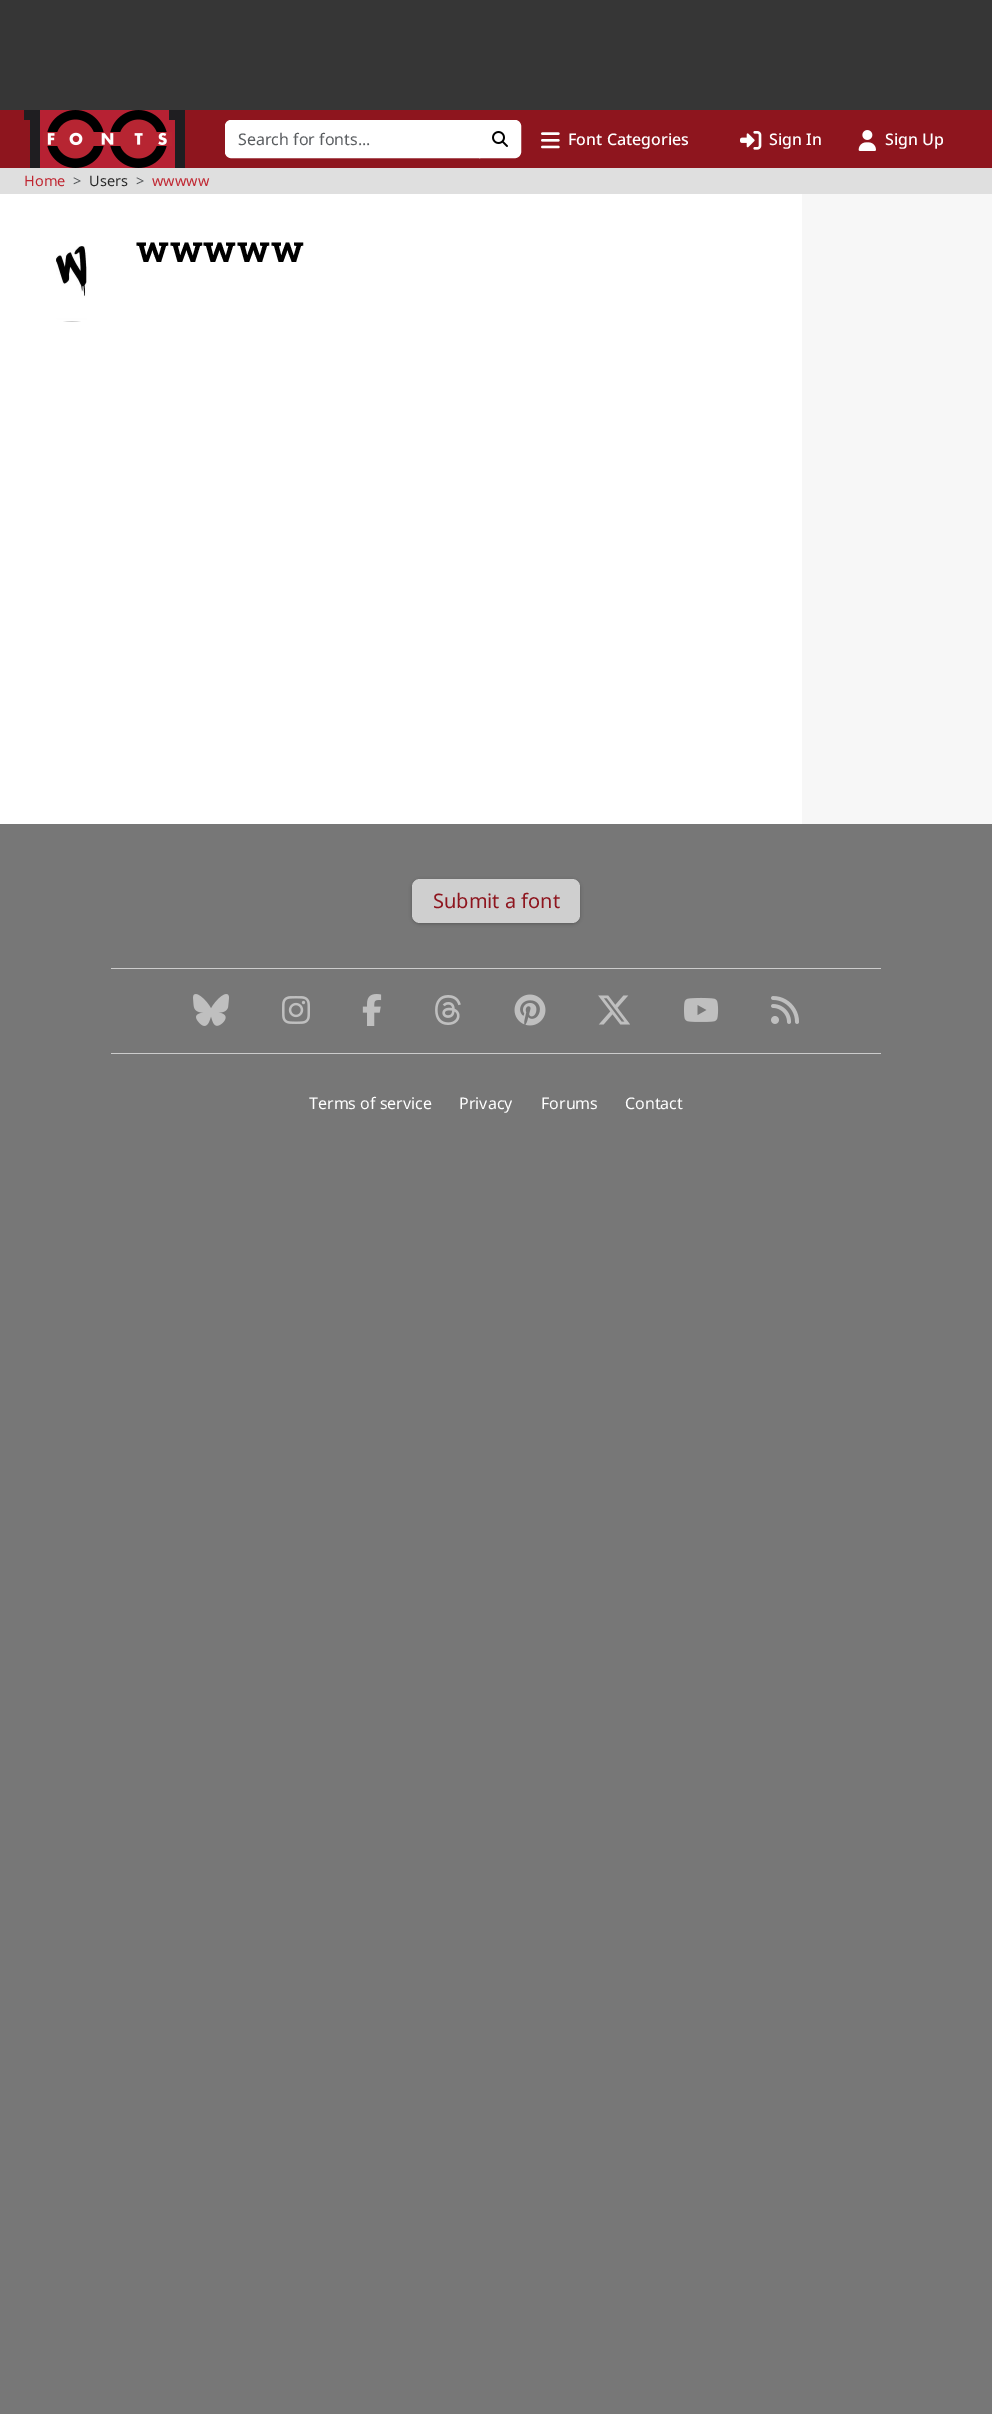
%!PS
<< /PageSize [992 2414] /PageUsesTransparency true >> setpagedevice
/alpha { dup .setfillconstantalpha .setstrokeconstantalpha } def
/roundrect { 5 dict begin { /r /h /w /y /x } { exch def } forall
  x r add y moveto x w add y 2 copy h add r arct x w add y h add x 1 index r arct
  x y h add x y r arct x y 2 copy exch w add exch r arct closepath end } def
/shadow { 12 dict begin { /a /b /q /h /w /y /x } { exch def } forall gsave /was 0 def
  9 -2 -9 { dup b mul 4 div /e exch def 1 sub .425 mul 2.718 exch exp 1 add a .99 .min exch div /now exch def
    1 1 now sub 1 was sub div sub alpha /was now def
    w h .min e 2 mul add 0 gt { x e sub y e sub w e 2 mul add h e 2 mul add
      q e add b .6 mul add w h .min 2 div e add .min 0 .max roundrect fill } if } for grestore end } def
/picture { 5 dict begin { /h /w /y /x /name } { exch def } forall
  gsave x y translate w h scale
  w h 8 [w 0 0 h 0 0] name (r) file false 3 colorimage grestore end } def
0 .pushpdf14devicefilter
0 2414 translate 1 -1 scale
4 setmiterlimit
0.467 setgray
0 0 992 2414 rectfill
0.212 setgray
0 0 992 110 rectfill
0.557 0.082 0.118 setrgbcolor
0 110 992 58 rectfill
(img1.rgb) 24 110 161 58 picture
1 setgray
newpath 231 120.5 moveto 479.5 120.5 lineto 479.5 157.5 lineto 231 157.5 lineto 228 157.5 225.5 155 225.5 152 curveto 225.5 126 lineto 225.5 123 228 120.5 231 120.5 curveto closepath gsave fill grestore
stroke
/NotoSans-Regular [16 0 0 -16 0 0] selectfont
0.349 0.361 0.373 setrgbcolor
238 145 moveto (Search for fonts...) show
1 setgray
newpath 479.5 120.5 moveto 515 120.5 lineto 518 120.5 520.5 123 520.5 126 curveto 520.5 152 lineto 520.5 155 518 157.5 515 157.5 curveto 479.5 157.5 lineto closepath gsave fill grestore
stroke
(img2.rgb) 492 131 16 16 picture
(img3.rgb) 541 132 19 17 picture
/NotoSans-Medium [16 0 0 -16 0 0] selectfont
568 145 moveto (Font Categories) show
(img4.rgb) 740 131 22 19 picture
769 145 moveto (Sign In) show
(img5.rgb) 858 130 18 21 picture
885 145 moveto (Sign Up) show
0.875 setgray
0 168 992 26 rectfill
/NotoSans-Regular [14.5 0 0 -14.5 0 0] selectfont
0.753 0.149 0.192 setrgbcolor
24 186 moveto (Home) show
0.318 0.329 0.341 setrgbcolor
73 186 moveto (>) show
0.169 setgray
89 186 moveto (Users) show
0.318 0.329 0.341 setrgbcolor
136 186 moveto (>) show
0.753 0.149 0.192 setrgbcolor
152 186 moveto (wwwww) show
1 setgray
0 194 802 630 rectfill
(img6.rgb) 56 246 31 76 picture
/RobotoSlab-Bold [37 0 0 -37 0 0] selectfont
0 setgray
136 262 moveto 0.75 0 (wwwww) ashow
0.969 setgray
802 194 190 630 rectfill
0 setgray
412 880 168 44 8 2 0.25 shadow
0.812 setgray
412 879 168 44 8 roundrect fill
/NotoSans-Regular [20 0 0 -20 0 0] selectfont
0.557 0.082 0.118 setrgbcolor
433 908 moveto (Submit a font) show
0.8 setgray
111 968 770 1 rectfill
111 1053 770 1 rectfill
(img7.rgb) 193 994 36 32 picture
(img8.rgb) 282 996 28 28 picture
(img9.rgb) 362 994 20 32 picture
(img10.rgb) 435 995 26 30 picture
(img11.rgb) 514 994 32 32 picture
(img12.rgb) 598 995 32 30 picture
(img13.rgb) 684 997 35 25 picture
(img14.rgb) 771 996 28 28 picture
/NotoSans-Regular [16 0 0 -16 0 0] selectfont
1 setgray
309 1109 moveto (Terms of service) show
459 1109 moveto (Privacy) show
541 1109 moveto (Forums) show
625 1109 moveto (Contact) show
.poppdf14devicefilter showpage
